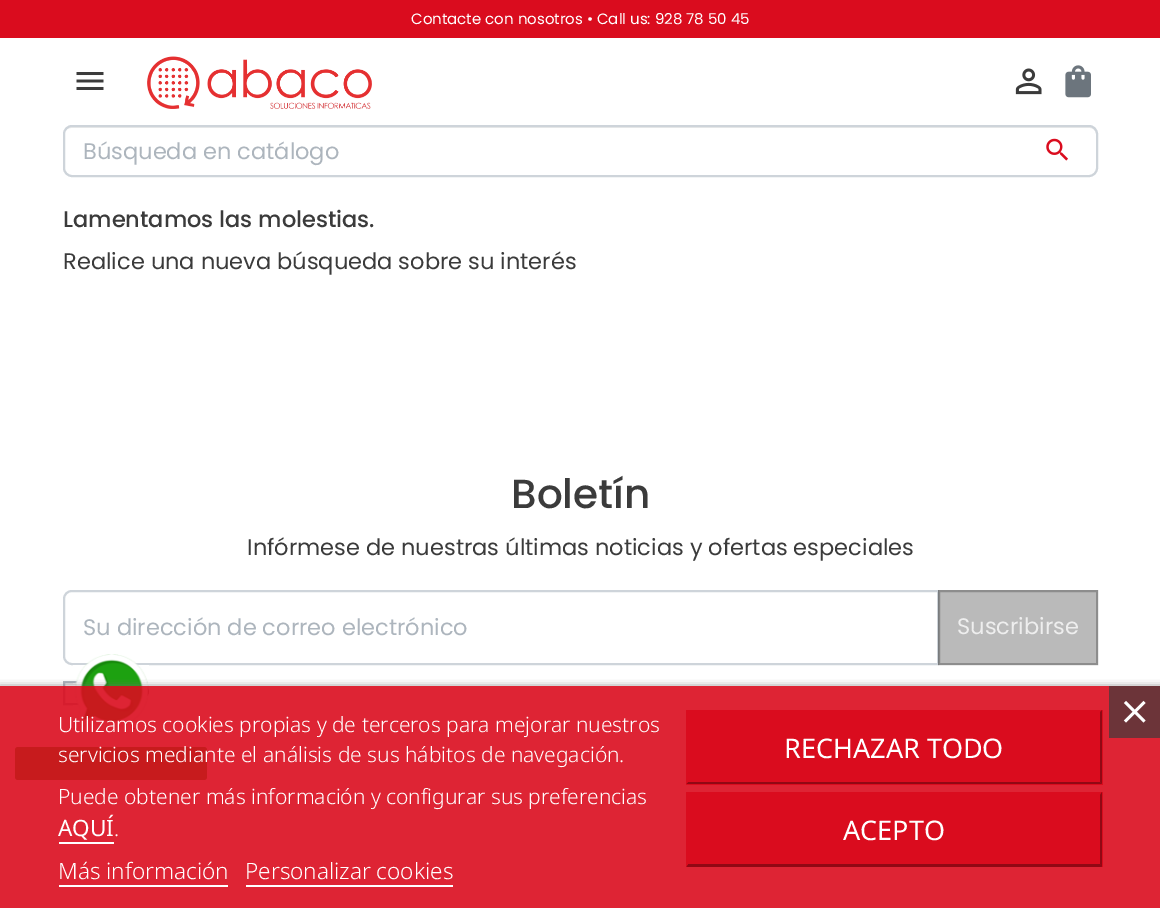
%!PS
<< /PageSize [1160 908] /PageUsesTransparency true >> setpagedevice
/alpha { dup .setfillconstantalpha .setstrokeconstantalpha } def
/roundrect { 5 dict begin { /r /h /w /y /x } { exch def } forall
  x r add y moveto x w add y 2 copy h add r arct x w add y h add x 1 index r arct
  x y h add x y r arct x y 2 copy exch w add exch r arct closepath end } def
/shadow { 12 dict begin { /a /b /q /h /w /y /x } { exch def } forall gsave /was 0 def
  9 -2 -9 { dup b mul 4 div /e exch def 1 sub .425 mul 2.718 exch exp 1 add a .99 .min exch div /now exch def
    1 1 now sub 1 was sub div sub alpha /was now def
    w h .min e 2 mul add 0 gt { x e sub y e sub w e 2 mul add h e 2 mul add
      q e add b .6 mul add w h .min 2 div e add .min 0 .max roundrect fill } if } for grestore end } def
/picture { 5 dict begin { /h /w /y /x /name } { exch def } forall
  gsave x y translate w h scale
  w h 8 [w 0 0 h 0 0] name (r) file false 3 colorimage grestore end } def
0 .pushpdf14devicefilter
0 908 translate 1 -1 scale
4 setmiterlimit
1 setgray
0 0 1160 908 rectfill
0.855 0.047 0.118 setrgbcolor
0 0 1160 38 rectfill
/Poppins-Regular [15 0 0 -15 0 0] selectfont
1 setgray
411 24 moveto (Contacte con nosotros • Call us: 928 78 50 45) show
(img1.rgb) 76 72 28 18 picture
(img2.rgb) 147 56 225 53 picture
(img3.rgb) 1015 68 27 27 picture
(img4.rgb) 1065 65 26 33 picture
0.925 setgray
newpath 71 128 moveto 1090 128 lineto 1093 128 1096 131 1096 134 curveto 1096 170 lineto 1096 173 lineto 1096 171 1097 170 1097 168 curveto 1097 134 lineto 1097 130 1093 126 1089 126 curveto 73 126 lineto 70 126 67 128 66 130 curveto 67 129 69 128 71 128 curveto closepath fill
0.808 0.831 0.855 setrgbcolor
2 setlinewidth
64 126 1033 50 8 roundrect stroke
/Poppins-Regular [22.5 0 0 -22.5 0 0] selectfont
0.678 0.71 0.741 setrgbcolor
83 159 moveto (Búsqueda en catálogo) show
(img5.rgb) 1046 138 22 23 picture
/Poppins-Medium [22.5 0 0 -22.5 0 0] selectfont
0.231 setgray
63 227 moveto (Lamentamos las molestias.) show
/Poppins-Regular [22.5 0 0 -22.5 0 0] selectfont
63 269 moveto (Realice una nueva búsqueda sobre su interés) show
/Poppins-Medium [40.5 0 0 -40.5 0 0] selectfont
511 508 moveto (Boletín) show
/Poppins-Regular [22.5 0 0 -22.5 0 0] selectfont
247 555 moveto (Infórmese de nuestras últimas noticias y ofertas especiales) show
0.808 0.831 0.855 setrgbcolor
newpath 72 591 moveto 938 591 lineto 938 664 lineto 72 664 lineto 67.5 664 64 660.5 64 656 curveto 64 599 lineto 64 594.5 67.5 591 72 591 curveto closepath stroke
0.678 0.71 0.741 setrgbcolor
83 635 moveto (Su dirección de correo electrónico) show
0.35 alpha
0.224 setgray
938 590 160 75 rectfill
939 591 158 73 rectstroke
1 alpha
0.933 setgray
957 634 moveto (Suscribirse) show
0.925 setgray
65 683 12 2 rectfill
0.678 0.71 0.741 setrgbcolor
64 682 22 22 rectstroke
(img6.rgb) 73 654 76 75 picture
0.114 0.631 0.063 setrgbcolor
15 747 192 33 3 roundrect fill
gsave
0 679 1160 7 rectclip
0.439 setgray
0 687 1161 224 0 4 1 shadow
grestore
0.9 alpha
0.855 0.047 0.118 setrgbcolor
0 686 1160 222 rectfill
/NotoSans-Light [21 0 0 -21 0 0] selectfont
1 alpha
1 setgray
58 732 moveto (Utilizamos cookies propias y de terceros para mejorar nuestros) show
58 762 moveto (servicios mediante el análisis de sus hábitos de navegación.) show
58 804 moveto (Puede obtener más información y configurar sus preferencias) show
/NotoSans-Regular [22.5 0 0 -22.5 0 0] selectfont
58 836 moveto (AQUÍ) show
59 842 55 2 rectfill
/NotoSans-Light [21 0 0 -21 0 0] selectfont
114 836 moveto (.) show
/NotoSans-Light [22.5 0 0 -22.5 0 0] selectfont
58 879 moveto (Más información) show
59 885 169 2 rectfill
245 879 moveto (Personalizar cookies) show
246 885 207 2 rectfill
0.855 0.047 0.118 setrgbcolor
686 710 417 75 rectfill
0.569 0.031 0.078 setrgbcolor
newpath 1102 710 moveto 1102 784 lineto 1100 782 lineto 1100 712 lineto closepath fill
newpath 1102 784 moveto 686 784 lineto 688 782 lineto 1100 782 lineto closepath fill
0.855 0.047 0.118 setrgbcolor
newpath 686 784 moveto 686 710 lineto 688 712 lineto 688 782 lineto closepath fill
/NotoSans-Regular [27 0 0 -27 0 0] selectfont
1 setgray
784 758 moveto (RECHAZAR TODO) show
0.855 0.047 0.118 setrgbcolor
686 792 417 75 rectfill
0.569 0.031 0.078 setrgbcolor
newpath 1102 792 moveto 1102 867 lineto 1100 864 lineto 1100 795 lineto closepath fill
newpath 1102 867 moveto 686 867 lineto 688 864 lineto 1100 864 lineto closepath fill
0.855 0.047 0.118 setrgbcolor
newpath 686 867 moveto 686 792 lineto 688 795 lineto 688 864 lineto closepath fill
1 setgray
843 840 moveto (ACEPTO) show
0.424 0.204 0.224 setrgbcolor
1109 686 51 52 rectfill
(img7.rgb) 1123 700 23 23 picture
.poppdf14devicefilter showpage
